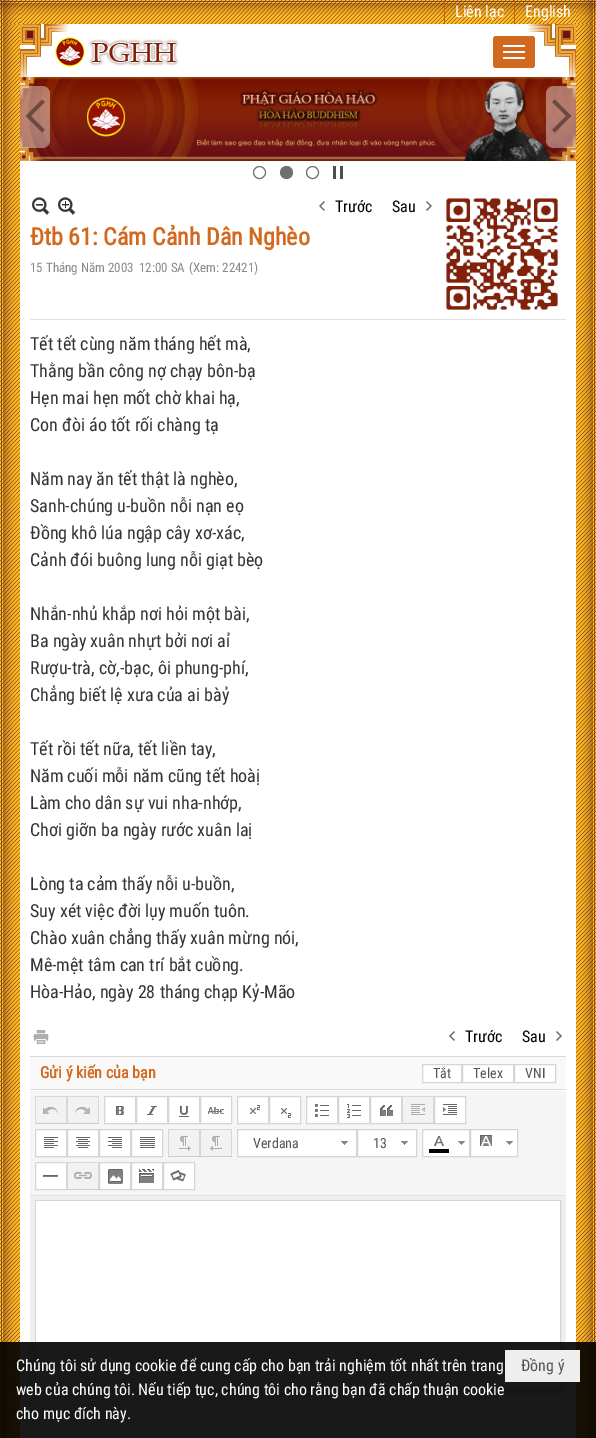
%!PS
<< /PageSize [596 1438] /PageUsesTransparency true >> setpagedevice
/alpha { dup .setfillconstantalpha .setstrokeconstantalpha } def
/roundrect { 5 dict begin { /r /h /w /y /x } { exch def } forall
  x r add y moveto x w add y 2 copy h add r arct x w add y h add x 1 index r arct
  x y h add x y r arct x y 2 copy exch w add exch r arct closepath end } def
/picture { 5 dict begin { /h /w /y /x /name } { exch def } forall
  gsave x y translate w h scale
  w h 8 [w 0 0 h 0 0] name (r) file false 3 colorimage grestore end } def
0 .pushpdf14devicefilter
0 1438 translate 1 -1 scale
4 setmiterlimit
1 setgray
0 0 596 1438 rectfill
(img1.rgb) 0 77 596 1361 picture
(img2.rgb) 0 0 596 24 picture
0.8 0.365 0.055 setrgbcolor
444 0 1 24 rectfill
/RobotoCondensed-Regular [16 0 0 -16 0 0] selectfont
1 setgray
455 17 moveto (Liên lạc) show
0.8 0.365 0.055 setrgbcolor
514 0 1 24 rectfill
1 setgray
525 17 moveto (English) show
(img3.rgb) 0 24 596 53 picture
(img4.rgb) 20 24 556 53 picture
(img5.rgb) 55 37 124 30 picture
0.824 0.412 0.118 setrgbcolor
493 36 42 32 3 roundrect fill
1 setgray
503 45 22 2 1 roundrect fill
503 51 22 2 1 roundrect fill
503 57 22 2 1 roundrect fill
(img6.rgb) 20 77 556 84 picture
0.4 alpha
newpath 20 86 moveto 42 86 lineto 46.5 86 50 89.5 50 94 curveto 50 140 lineto 50 144.5 46.5 148 42 148 curveto 20 148 lineto closepath fill
1 alpha
(img7.rgb) 25 99 20 34 picture
0.4 alpha
newpath 554 86 moveto 576 86 lineto 576 148 lineto 554 148 lineto 549.5 148 546 144.5 546 140 curveto 546 94 lineto 546 89.5 549.5 86 554 86 curveto closepath fill
1 alpha
(img8.rgb) 552 99 20 34 picture
0.439 setgray
newpath 259.5 172.5 6 0 360 arc closepath stroke
newpath 286.5 172.5 6.5 0 360 arc closepath fill
newpath 312.5 172.5 6 0 360 arc closepath stroke
(img9.rgb) 333 166 10 13 picture
0.882 setgray
30 319 536 1 rectfill
(img10.rgb) 32 197 18 18 picture
(img11.rgb) 58 197 18 18 picture
(img12.rgb) 319 201 6 10 picture
0 setgray
335 212 moveto (Trước) show
(img13.rgb) 425 201 7 10 picture
392 212 moveto (Sau) show
(img14.rgb) 446 198 112 112 picture
/RobotoCondensed-Bold [24 0 0 -24 0 0] selectfont
0.824 0.412 0.118 setrgbcolor
30 245 moveto (Đtb 61: Cám Cảnh Dân Nghèo) show
/RobotoCondensed-Regular [13 0 0 -13 0 0] selectfont
0.533 setgray
30 272 moveto (15 Tháng Năm 2003) show
139 272 moveto (12:00 SA) show
189 272 moveto (\(Xem: 22421\)) show
/RobotoCondensed-Regular [18 0 0 -18 0 0] selectfont
0.2 setgray
30 350 moveto (Tết tết cùng năm tháng hết mà,) show
30 377 moveto (Thằng bần công nợ chạy bôn-bạ) show
30 404 moveto (Hẹn mai hẹn mốt chờ khai hạ,) show
30 431 moveto (Con đòi áo tốt rối chàng tạ) show
30 485 moveto (Năm nay ăn tết thật là nghèo,) show
30 512 moveto (Sanh-chúng u-buồn nỗi nạn eọ) show
30 539 moveto (Đồng khô lúa ngập cây xơ-xác,) show
30 566 moveto (Cảnh đói buông lung nỗi giạt bèọ) show
30 620 moveto (Nhắn-nhủ khắp nơi hỏi một bài,) show
30 647 moveto (Ba ngày xuân nhựt bởi nơi aỉ) show
30 674 moveto (Rượu-trà, cờ,-bạc, ôi phung-phí,) show
30 701 moveto (Chẳng biết lệ xưa của ai bàỷ) show
30 755 moveto (Tết rồi tết nữa, tết liền tay,) show
30 782 moveto (Năm cuối mỗi năm cũng tết hoàị) show
30 809 moveto (Làm cho dân sự vui nha-nhớp,) show
30 836 moveto (Chơi giỡn ba ngày rước xuân laị) show
30 890 moveto (Lòng ta cảm thấy nỗi u-buồn,) show
30 917 moveto (Suy xét việc đời lụy muốn tuôn.) show
30 944 moveto (Chào xuân chẳng thấy xuân mừng nói,) show
30 971 moveto (Mê-mệt tâm can trí bắt cuồng.) show
30 998 moveto (Hòa-Hảo, ngày 28 tháng chạp Kỷ-Mão) show
(img15.rgb) 33 1030 16 15 picture
(img12.rgb) 449 1031 6 10 picture
/RobotoCondensed-Regular [16 0 0 -16 0 0] selectfont
0 setgray
465 1042 moveto (Trước) show
(img13.rgb) 555 1031 7 10 picture
522 1042 moveto (Sau) show
0.976 setgray
30 1057 536 32 rectfill
0.851 setgray
30 1056 536 1 rectfill
30 1089 536 1 rectfill
/RobotoCondensed-Bold [16 0 0 -16 0 0] selectfont
0.824 0.412 0.118 setrgbcolor
40 1078 moveto (Gửi ý kiến của bạn) show
1 setgray
newpath 422.5 1064.5 moveto 461.5 1064.5 lineto 461.5 1082.5 lineto 422.5 1082.5 lineto closepath gsave fill grestore
0.835 setgray
stroke
/RobotoCondensed-Regular [14 0 0 -14 0 0] selectfont
0.333 setgray
433 1078 moveto (Tắt) show
1 setgray
newpath 462.5 1064.5 moveto 513.5 1064.5 lineto 513.5 1082.5 lineto 462.5 1082.5 lineto closepath gsave fill grestore
0.835 setgray
stroke
0.333 setgray
473 1078 moveto (Telex) show
1 setgray
newpath 514.5 1064.5 moveto 555.5 1064.5 lineto 555.5 1082.5 lineto 514.5 1082.5 lineto closepath gsave fill grestore
0.835 setgray
stroke
0.333 setgray
525 1078 moveto (VNI) show
0.867 setgray
30 1404 536 1 rectfill
0.961 setgray
30 1091 536 104 rectfill
0.949 setgray
36 1097 30 26 rectfill
0.847 setgray
35 1096 64 1 rectfill
66 1096 1 28 rectfill
0.8 setgray
35 1123 32 1 rectfill
0.847 setgray
35 1096 1 28 rectfill
(img16.rgb) 43 1107 15 7 picture
0.949 setgray
68 1097 30 26 rectfill
0.847 setgray
98 1096 1 28 rectfill
0.8 setgray
67 1123 32 1 rectfill
0.847 setgray
67 1096 1 28 rectfill
(img17.rgb) 75 1107 15 7 picture
1 setgray
newpath 104.5 1096.5 moveto 135.5 1096.5 lineto 135.5 1123.5 lineto 104.5 1123.5 lineto closepath gsave fill grestore
0.835 setgray
stroke
(img18.rgb) 116 1106 9 9 picture
1 setgray
newpath 136.5 1096.5 moveto 167.5 1096.5 lineto 167.5 1123.5 lineto 136.5 1123.5 lineto closepath gsave fill grestore
0.835 setgray
stroke
(img19.rgb) 147 1106 10 9 picture
1 setgray
newpath 168.5 1096.5 moveto 199.5 1096.5 lineto 199.5 1123.5 lineto 168.5 1123.5 lineto closepath gsave fill grestore
0.835 setgray
stroke
(img20.rgb) 179 1106 10 11 picture
1 setgray
newpath 200.5 1096.5 moveto 231.5 1096.5 lineto 231.5 1123.5 lineto 200.5 1123.5 lineto closepath gsave fill grestore
0.835 setgray
stroke
(img21.rgb) 208 1107 16 7 picture
1 setgray
newpath 237.5 1096.5 moveto 268.5 1096.5 lineto 268.5 1123.5 lineto 237.5 1123.5 lineto closepath gsave fill grestore
0.835 setgray
stroke
(img22.rgb) 250 1105 10 9 picture
1 setgray
newpath 269.5 1096.5 moveto 300.5 1096.5 lineto 300.5 1123.5 lineto 269.5 1123.5 lineto closepath gsave fill grestore
0.835 setgray
stroke
(img23.rgb) 281 1108 10 10 picture
1 setgray
newpath 306.5 1096.5 moveto 337.5 1096.5 lineto 337.5 1123.5 lineto 306.5 1123.5 lineto closepath gsave fill grestore
0.835 setgray
stroke
(img24.rgb) 315 1104 14 13 picture
1 setgray
newpath 338.5 1096.5 moveto 369.5 1096.5 lineto 369.5 1123.5 lineto 338.5 1123.5 lineto closepath gsave fill grestore
0.835 setgray
stroke
(img25.rgb) 347 1104 14 14 picture
1 setgray
newpath 370.5 1096.5 moveto 401.5 1096.5 lineto 401.5 1123.5 lineto 370.5 1123.5 lineto closepath gsave fill grestore
0.835 setgray
stroke
(img26.rgb) 380 1105 13 11 picture
0.949 setgray
403 1097 30 26 rectfill
0.847 setgray
402 1096 32 1 rectfill
433 1096 1 28 rectfill
0.8 setgray
402 1123 32 1 rectfill
0.847 setgray
402 1096 1 28 rectfill
(img27.rgb) 411 1104 14 11 picture
1 setgray
newpath 434.5 1096.5 moveto 465.5 1096.5 lineto 465.5 1123.5 lineto 434.5 1123.5 lineto closepath gsave fill grestore
0.835 setgray
stroke
(img28.rgb) 443 1104 14 11 picture
1 setgray
newpath 35.5 1129.5 moveto 66.5 1129.5 lineto 66.5 1156.5 lineto 35.5 1156.5 lineto closepath gsave fill grestore
0.835 setgray
stroke
(img29.rgb) 44 1137 14 11 picture
1 setgray
newpath 67.5 1129.5 moveto 98.5 1129.5 lineto 98.5 1156.5 lineto 67.5 1156.5 lineto closepath gsave fill grestore
0.835 setgray
stroke
(img30.rgb) 76 1137 14 11 picture
1 setgray
newpath 99.5 1129.5 moveto 130.5 1129.5 lineto 130.5 1156.5 lineto 99.5 1156.5 lineto closepath gsave fill grestore
0.835 setgray
stroke
(img31.rgb) 108 1137 14 11 picture
1 setgray
newpath 131.5 1129.5 moveto 162.5 1129.5 lineto 162.5 1156.5 lineto 131.5 1156.5 lineto closepath gsave fill grestore
0.835 setgray
stroke
(img32.rgb) 140 1137 15 11 picture
0.949 setgray
169 1130 30 26 rectfill
0.847 setgray
168 1129 64 1 rectfill
199 1129 1 28 rectfill
0.8 setgray
168 1156 32 1 rectfill
0.847 setgray
168 1129 1 28 rectfill
(img33.rgb) 179 1136 12 15 picture
0.949 setgray
201 1130 30 26 rectfill
0.847 setgray
231 1129 1 28 rectfill
0.8 setgray
200 1156 32 1 rectfill
0.847 setgray
200 1129 1 28 rectfill
(img34.rgb) 210 1136 12 15 picture
1 setgray
newpath 237.5 1129.5 moveto 356.5 1129.5 lineto 356.5 1156.5 lineto 237.5 1156.5 lineto closepath gsave fill grestore
0.835 setgray
stroke
0.333 setgray
253 1148 moveto (Verdana) show
(img35.rgb) 341 1141 7 4 picture
1 setgray
newpath 357.5 1129.5 moveto 416.5 1129.5 lineto 416.5 1156.5 lineto 357.5 1156.5 lineto closepath gsave fill grestore
0.835 setgray
stroke
0.333 setgray
373 1148 moveto (13) show
(img35.rgb) 401 1141 7 4 picture
1 setgray
newpath 422.5 1129.5 moveto 469.5 1129.5 lineto 469.5 1156.5 lineto 422.5 1156.5 lineto closepath gsave fill grestore
0.835 setgray
stroke
(img36.rgb) 434 1136 10 10 picture
(img35.rgb) 458 1141 7 4 picture
0 setgray
429 1149 20 4 rectfill
1 setgray
newpath 470.5 1129.5 moveto 517.5 1129.5 lineto 517.5 1156.5 lineto 470.5 1156.5 lineto closepath gsave fill grestore
0.835 setgray
stroke
(img37.rgb) 480 1135 12 11 picture
(img35.rgb) 506 1141 7 4 picture
1 setgray
newpath 35.5 1162.5 moveto 66.5 1162.5 lineto 66.5 1189.5 lineto 35.5 1189.5 lineto closepath gsave fill grestore
0.835 setgray
stroke
(img38.rgb) 43 1175 15 2 picture
0.949 setgray
68 1163 30 26 rectfill
0.847 setgray
67 1162 32 1 rectfill
98 1162 1 28 rectfill
0.8 setgray
67 1189 32 1 rectfill
0.847 setgray
67 1162 1 28 rectfill
(img39.rgb) 74 1172 19 7 picture
1 setgray
newpath 99.5 1162.5 moveto 130.5 1162.5 lineto 130.5 1189.5 lineto 99.5 1189.5 lineto closepath gsave fill grestore
0.835 setgray
stroke
(img40.rgb) 108 1169 15 15 picture
1 setgray
newpath 131.5 1162.5 moveto 162.5 1162.5 lineto 162.5 1189.5 lineto 131.5 1189.5 lineto closepath gsave fill grestore
0.835 setgray
stroke
(img41.rgb) 139 1169 15 14 picture
1 setgray
newpath 163.5 1162.5 moveto 194.5 1162.5 lineto 194.5 1189.5 lineto 163.5 1189.5 lineto closepath gsave fill grestore
0.835 setgray
stroke
(img42.rgb) 170 1170 16 12 picture
0.937 setgray
30 1196 536 199 rectfill
0.89 setgray
30 1195 536 1 rectfill
0.835 setgray
35.5 1200.5 525 189 rectstroke
1 setgray
36 1201 524 188 rectfill
0.9 alpha
0 setgray
0 1342 596 96 rectfill
/RobotoCondensed-Regular [16 0 0 -16 0 0] selectfont
1 alpha
1 setgray
16 1371 moveto (Chúng tôi sử dụng cookie để cung cấp cho bạn trải nghiệm tốt nhất trên trang) show
16 1395 moveto (web của chúng tôi. Nếu tiếp tục, chúng tôi cho rằng bạn đã chấp thuận cookie) show
16 1419 moveto (cho mục đích này.) show
0.933 setgray
505 1350 75 32 rectfill
0.333 setgray
521 1371 moveto (Đồng ý) show
.poppdf14devicefilter showpage
